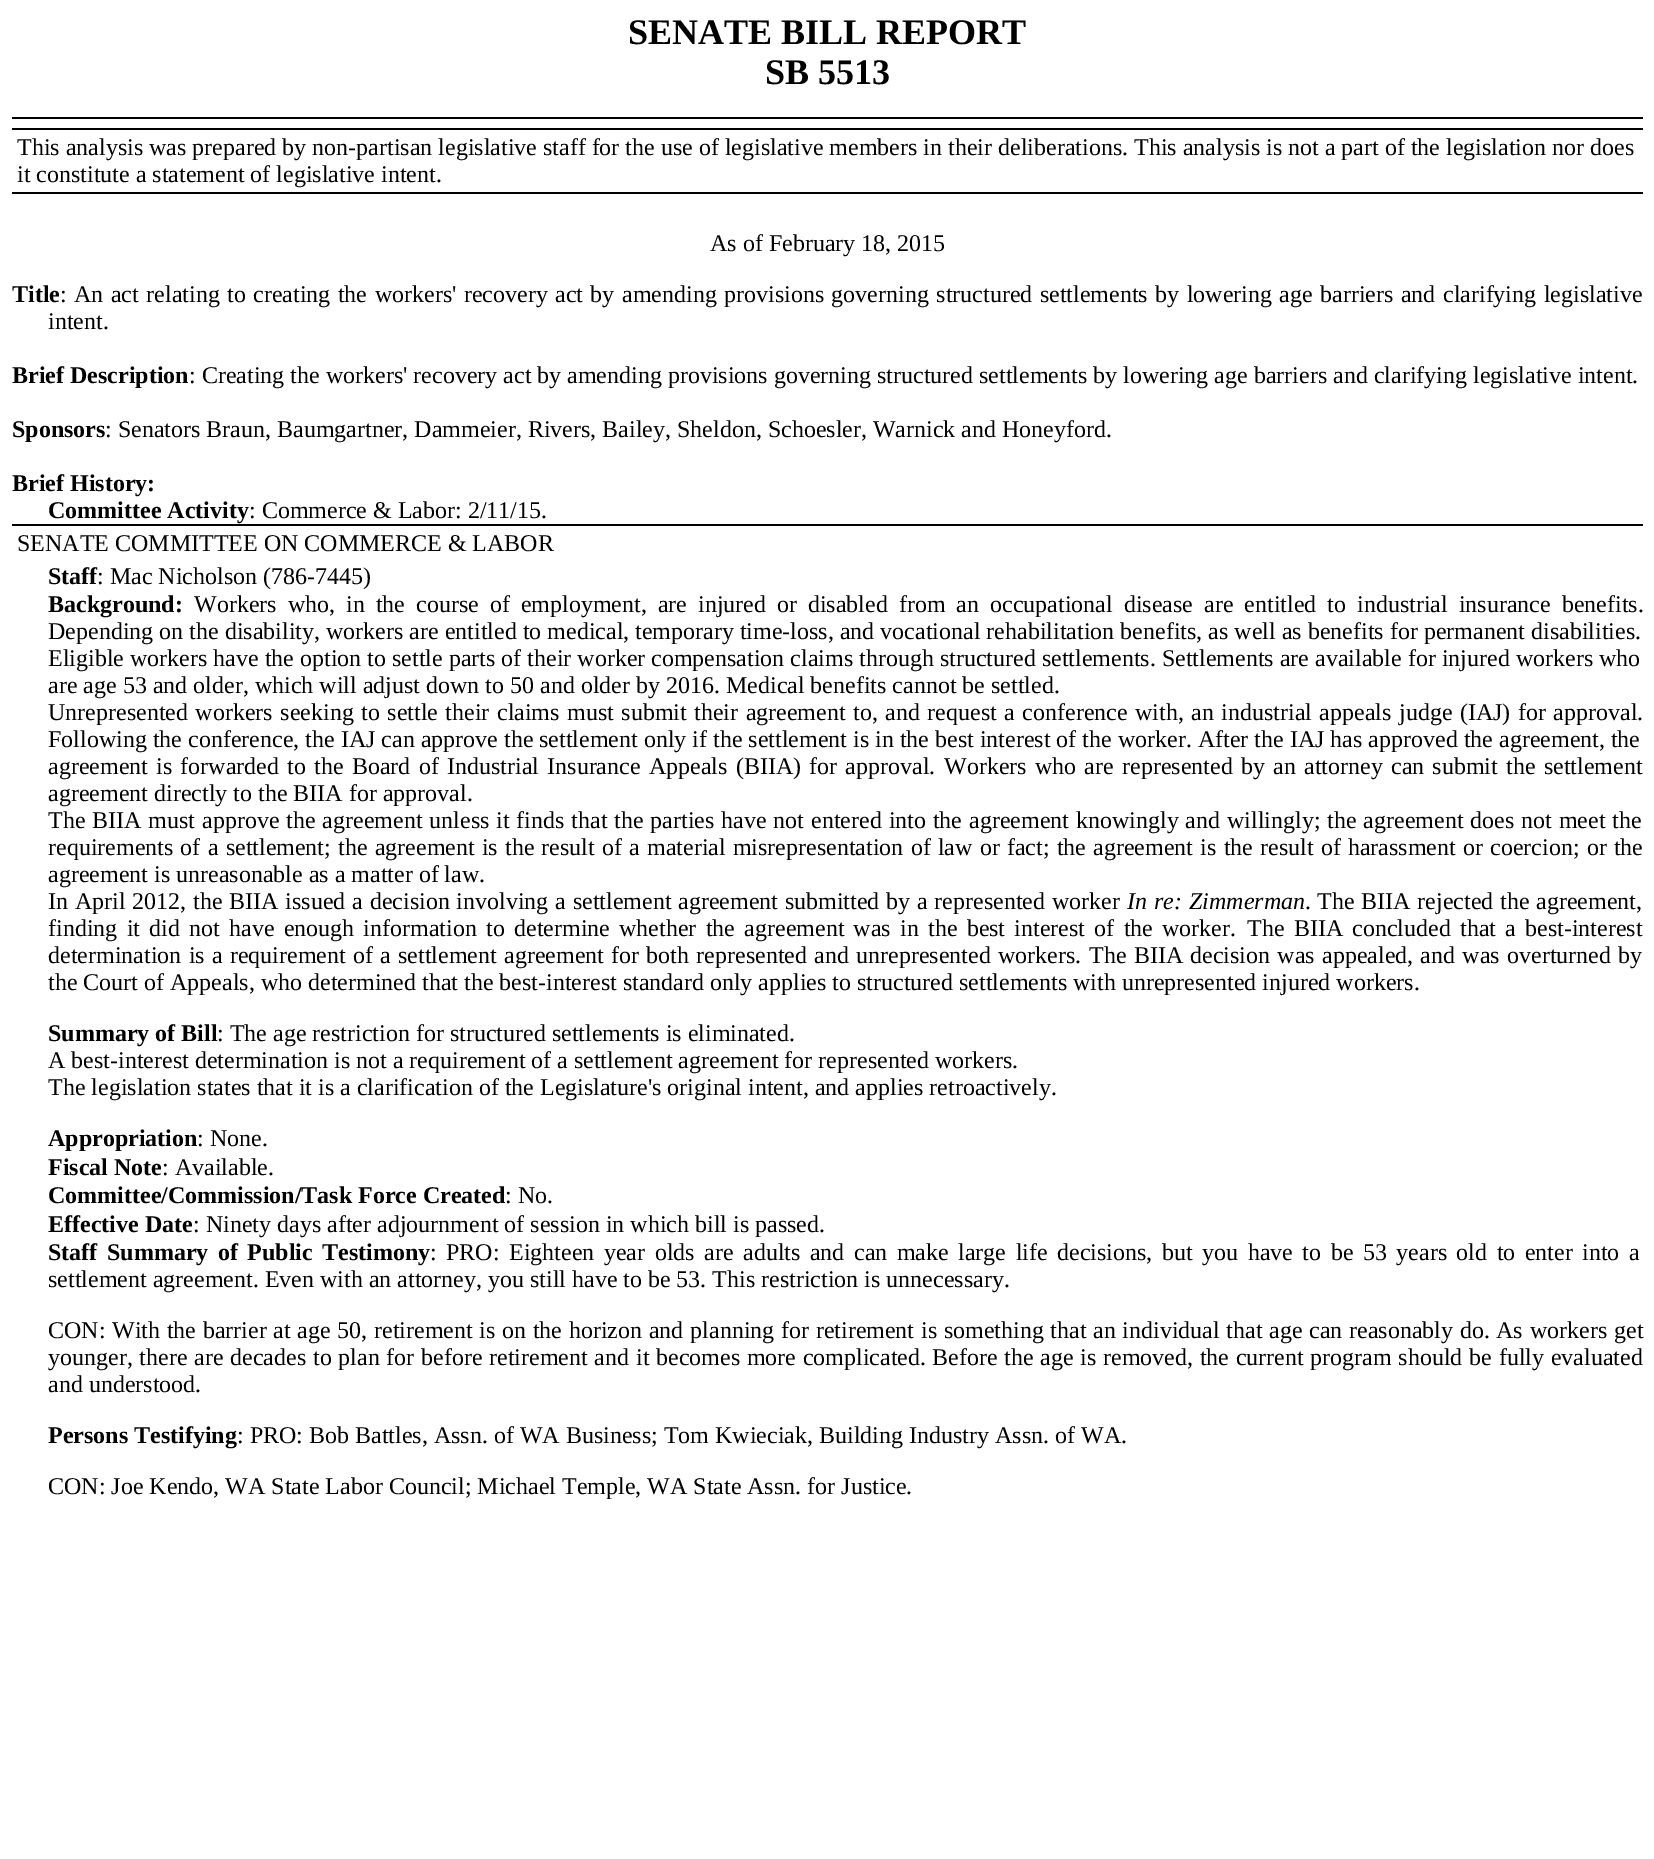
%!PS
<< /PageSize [1654 1859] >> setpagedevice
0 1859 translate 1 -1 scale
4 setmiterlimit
1 setgray
0 0 1654 1859 rectfill
/LiberationSerif-Bold [36 0 0 -36 0 0] selectfont
0 setgray
628 44 moveto (SENATE BILL REPORT) show
765 84 moveto (SB 5513) show
12 117 1631 2 rectfill
12 128 1631 2 rectfill
12 192 1631 2 rectfill
/LiberationSerif-Regular [24 0 0 -24 0 0] selectfont
17 155 moveto (This analysis was prepared by non-partisan legislative staff for the use of legislative members in their deliberations. This analysis is not a part of the legislation nor does) show
17 182 moveto (it constitute a statement of legislative intent.) show
710 251 moveto (As of February 18, 2015) show
/LiberationSerif-Bold [24 0 0 -24 0 0] selectfont
12 302 moveto (Title) show
/LiberationSerif-Regular [24 0 0 -24 0 0] selectfont
60 302 moveto (:) show
74 302 moveto 1.45 0 32 (An act relating to creating the workers' recovery act by amending provisions governing structured settlements by lowering age barriers and clarifying legislative) widthshow
48 329 moveto (intent.) show
/LiberationSerif-Bold [24 0 0 -24 0 0] selectfont
12 383 moveto (Brief Description) show
/LiberationSerif-Regular [24 0 0 -24 0 0] selectfont
189 383 moveto (: Creating the workers' recovery act by amending provisions governing structured settlements by lowering age barriers and clarifying legislative intent.) show
/LiberationSerif-Bold [24 0 0 -24 0 0] selectfont
12 437 moveto (Sponsors) show
/LiberationSerif-Regular [24 0 0 -24 0 0] selectfont
105 437 moveto (: Senators Braun, Baumgartner, Dammeier, Rivers, Bailey, Sheldon, Schoesler, Warnick and Honeyford.) show
/LiberationSerif-Bold [24 0 0 -24 0 0] selectfont
12 491 moveto (Brief History:) show
48 518 moveto (Committee Activity) show
/LiberationSerif-Regular [24 0 0 -24 0 0] selectfont
249 518 moveto (: Commerce & Labor: 2/11/15.) show
12 524 1631 2 rectfill
17 551 moveto (SENATE COMMITTEE ON COMMERCE & LABOR) show
/LiberationSerif-Bold [24 0 0 -24 0 0] selectfont
48 584 moveto (Staff) show
/LiberationSerif-Regular [24 0 0 -24 0 0] selectfont
97 584 moveto (: Mac Nicholson \(786-7445\)) show
/LiberationSerif-Bold [24 0 0 -24 0 0] selectfont
48 612 moveto (Background:) show
/LiberationSerif-Regular [24 0 0 -24 0 0] selectfont
194 612 moveto 5 0 32 (Workers who, in the course of employment, are injured or disabled from an occupational disease are entitled to industrial insurance benefits.) widthshow
48 639 moveto (Depending on the disability, workers are entitled to medical, temporary time-loss, and vocational rehabilitation benefits, as well as benefits for permanent disabilities.) show
48 666 moveto (Eligible workers have the option to settle parts of their worker compensation claims through structured settlements. Settlements are available for injured workers who) show
48 693 moveto (are age 53 and older, which will adjust down to 50 and older by 2016. Medical benefits cannot be settled.) show
48 720 moveto 1.5 0 32 (Unrepresented workers seeking to settle their claims must submit their agreement to, and request a conference with, an industrial appeals judge \(IAJ\) for approval.) widthshow
48 747 moveto (Following the conference, the IAJ can approve the settlement only if the settlement is in the best interest of the worker. After the IAJ has approved the agreement, the) show
48 774 moveto 2.25 0 32 (agreement is forwarded to the Board of Industrial Insurance Appeals \(BIIA\) for approval.) widthshow
944 774 moveto 2.25 0 32 (Workers who are represented by an attorney can submit the settlement) widthshow
48 801 moveto (agreement directly to the BIIA for approval.) show
48 828 moveto 0.9 0 32 (The BIIA must approve the agreement unless it finds that the parties have not entered into the agreement knowingly and willingly; the agreement does not meet the) widthshow
48 855 moveto 1.2 0 32 (requirements of a settlement; the agreement is the result of a material misrepresentation of law or fact; the agreement is the result of harassment or coercion; or the) widthshow
48 882 moveto (agreement is unreasonable as a matter of law.) show
48 909 moveto 0.8 0 32 (In April 2012, the BIIA issued a decision involving a settlement agreement submitted by a represented worker) widthshow
/LiberationSerif-Italic [24 0 0 -24 0 0] selectfont
1127 909 moveto 1 0 32 (In re: Zimmerman) widthshow
/LiberationSerif-Regular [24 0 0 -24 0 0] selectfont
1305 909 moveto (.) show
1317 909 moveto 0.8 0 32 (The BIIA rejected the agreement,) widthshow
48 936 moveto 3.25 0 32 (finding it did not have enough information to determine whether the agreement was in the best interest of the worker.) widthshow
1247 936 moveto 3.25 0 32 (The BIIA concluded that a best-interest) widthshow
48 963 moveto 1.25 0 32 (determination is a requirement of a settlement agreement for both represented and unrepresented workers.) widthshow
1089 963 moveto 1.25 0 32 (The BIIA decision was appealed, and was overturned by) widthshow
48 990 moveto (the Court of Appeals, who determined that the best-interest standard only applies to structured settlements with unrepresented injured workers.) show
/LiberationSerif-Bold [24 0 0 -24 0 0] selectfont
48 1041 moveto (Summary of Bill) show
/LiberationSerif-Regular [24 0 0 -24 0 0] selectfont
217 1041 moveto (: The age restriction for structured settlements is eliminated.) show
48 1068 moveto (A best-interest determination is not a requirement of a settlement agreement for represented workers.) show
48 1095 moveto (The legislation states that it is a clarification of the Legislature's original intent, and applies retroactively.) show
/LiberationSerif-Bold [24 0 0 -24 0 0] selectfont
48 1146 moveto (Appropriation) show
/LiberationSerif-Regular [24 0 0 -24 0 0] selectfont
197 1146 moveto (: None.) show
/LiberationSerif-Bold [24 0 0 -24 0 0] selectfont
48 1175 moveto (Fiscal Note) show
/LiberationSerif-Regular [24 0 0 -24 0 0] selectfont
162 1175 moveto (: Available.) show
/LiberationSerif-Bold [24 0 0 -24 0 0] selectfont
48 1203 moveto (Committee/Commission/Task Force Created) show
/LiberationSerif-Regular [24 0 0 -24 0 0] selectfont
505 1203 moveto (: No.) show
/LiberationSerif-Bold [24 0 0 -24 0 0] selectfont
48 1232 moveto (Effective Date) show
/LiberationSerif-Regular [24 0 0 -24 0 0] selectfont
193 1232 moveto (: Ninety days after adjournment of session in which bill is passed.) show
/LiberationSerif-Bold [24 0 0 -24 0 0] selectfont
48 1260 moveto 3.5 0 32 (Staff Summary of Public Testimony) widthshow
/LiberationSerif-Regular [24 0 0 -24 0 0] selectfont
430 1260 moveto (:) show
446 1260 moveto (PRO:) show
509 1260 moveto 3.5 0 32 (Eighteen year olds are adults and can make large life decisions, but you have to be 53 years old to enter into a) widthshow
48 1287 moveto (settlement agreement. Even with an attorney, you still have to be 53. This restriction is unnecessary.) show
48 1338 moveto (CON:) show
112 1338 moveto 0.7 0 32 (With the barrier at age 50, retirement is on the horizon and planning for retirement is something that an individual that age can reasonably do.) widthshow
1496 1338 moveto 1 0 32 (As workers get) widthshow
48 1365 moveto 0.75 0 32 (younger, there are decades to plan for before retirement and it becomes more complicated.) widthshow
932 1365 moveto 0.75 0 32 (Before the age is removed, the current program should be fully evaluated) widthshow
48 1392 moveto (and understood.) show
/LiberationSerif-Bold [24 0 0 -24 0 0] selectfont
48 1443 moveto (Persons Testifying) show
/LiberationSerif-Regular [24 0 0 -24 0 0] selectfont
237 1443 moveto (: PRO: Bob Battles, Assn. of WA Business; Tom Kwieciak, Building Industry Assn. of WA.) show
48 1494 moveto (CON: Joe Kendo, WA State Labor Council; Michael Temple, WA State Assn. for Justice.) show
showpage
